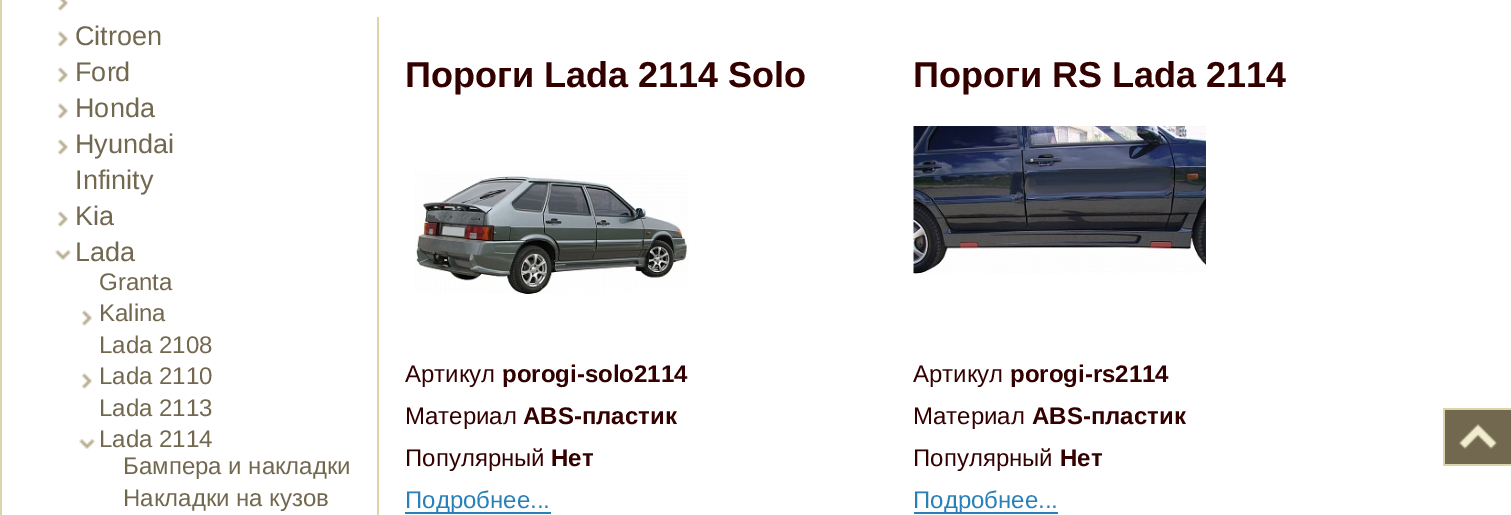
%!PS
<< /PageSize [1511 515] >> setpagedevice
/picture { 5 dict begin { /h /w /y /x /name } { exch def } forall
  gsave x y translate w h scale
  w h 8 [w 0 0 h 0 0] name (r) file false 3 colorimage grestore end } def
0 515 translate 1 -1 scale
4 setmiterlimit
1 setgray
0 0 1511 515 rectfill
0.867 0.835 0.655 setrgbcolor
377 17 2 498 rectfill
0 0 2 515 rectfill
(img1.rgb) 58 0 10 11 picture
(img2.rgb) 58 31 10 16 picture
/LiberationSans-Regular [27 0 0 -27 0 0] selectfont
0.447 0.404 0.31 setrgbcolor
75 45 moveto (Citroen) show
(img2.rgb) 58 67 10 16 picture
75 81 moveto (Ford) show
(img2.rgb) 58 103 10 16 picture
75 117 moveto (Honda) show
(img2.rgb) 58 139 10 16 picture
75 153 moveto (Hyundai) show
75 189 moveto (Infinity) show
(img2.rgb) 58 211 10 16 picture
75 225 moveto (Kia) show
(img3.rgb) 55 250 16 10 picture
75 261 moveto (Lada) show
/LiberationSans-Regular [24 0 0 -24 0 0] selectfont
99 290 moveto (Granta) show
(img2.rgb) 82 310 10 16 picture
99 321 moveto (Kalina) show
99 353 moveto (Lada 2108) show
(img2.rgb) 82 373 10 16 picture
99 384 moveto (Lada 2110) show
99 416 moveto (Lada 2113) show
(img3.rgb) 79 439 16 10 picture
99 447 moveto (Lada 2114) show
123 474 moveto (Бампера и накладки) show
123 506 moveto (Накладки на кузов) show
/LiberationSans-Bold [36 0 0 -36 0 0] selectfont
0.2 0 0 setrgbcolor
405 87 moveto (Пороги Lada 2114 Solo) show
(img4.rgb) 414 170 275 124 picture
/LiberationSans-Regular [24 0 0 -24 0 0] selectfont
405 382 moveto (Артикул) show
/LiberationSans-Bold [24 0 0 -24 0 0] selectfont
502 382 moveto (porogi-solo2114) show
/LiberationSans-Regular [24 0 0 -24 0 0] selectfont
405 424 moveto (Материал) show
/LiberationSans-Bold [24 0 0 -24 0 0] selectfont
523 424 moveto (ABS-пластик) show
/LiberationSans-Regular [24 0 0 -24 0 0] selectfont
405 466 moveto (Популярный) show
/LiberationSans-Bold [24 0 0 -24 0 0] selectfont
551 466 moveto (Нет) show
0.161 0.502 0.725 setrgbcolor
405 512 146 2 rectfill
/LiberationSans-Regular [24 0 0 -24 0 0] selectfont
405 508 moveto (Подробнее...) show
/LiberationSans-Bold [36 0 0 -36 0 0] selectfont
0.2 0 0 setrgbcolor
913 87 moveto (Пороги RS Lada 2114) show
(img5.rgb) 913 126 293 148 picture
/LiberationSans-Regular [24 0 0 -24 0 0] selectfont
913 382 moveto (Артикул) show
/LiberationSans-Bold [24 0 0 -24 0 0] selectfont
1010 382 moveto (porogi-rs2114) show
/LiberationSans-Regular [24 0 0 -24 0 0] selectfont
913 424 moveto (Материал) show
/LiberationSans-Bold [24 0 0 -24 0 0] selectfont
1032 424 moveto (ABS-пластик) show
/LiberationSans-Regular [24 0 0 -24 0 0] selectfont
913 466 moveto (Популярный) show
/LiberationSans-Bold [24 0 0 -24 0 0] selectfont
1060 466 moveto (Нет) show
0.161 0.502 0.725 setrgbcolor
914 512 144 2 rectfill
/LiberationSans-Regular [24 0 0 -24 0 0] selectfont
913 508 moveto (Подробнее...) show
0.447 0.404 0.31 setrgbcolor
1445 410 66 54 rectfill
0.867 0.835 0.655 setrgbcolor
1443 408 68 2 rectfill
1443 464 68 2 rectfill
1443 408 2 57 rectfill
(img6.rgb) 1459 424 38 25 picture
showpage
